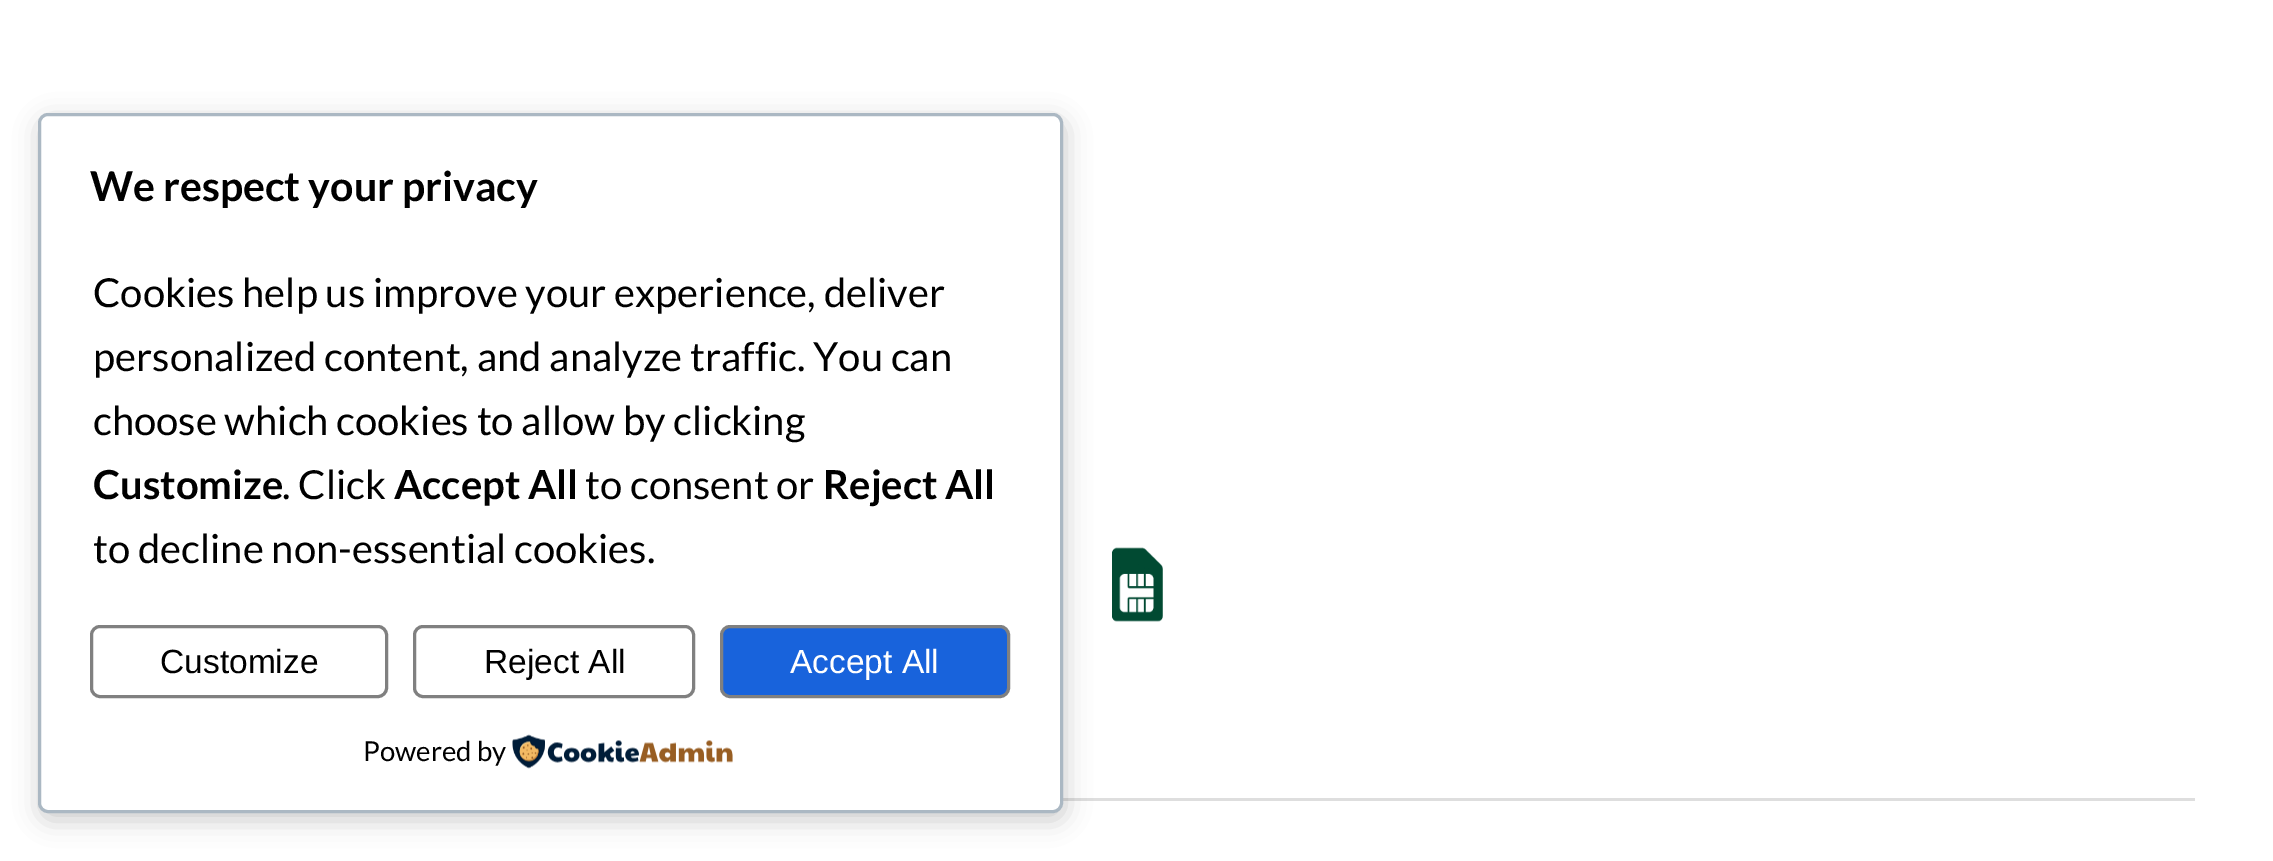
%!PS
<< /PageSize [2273 861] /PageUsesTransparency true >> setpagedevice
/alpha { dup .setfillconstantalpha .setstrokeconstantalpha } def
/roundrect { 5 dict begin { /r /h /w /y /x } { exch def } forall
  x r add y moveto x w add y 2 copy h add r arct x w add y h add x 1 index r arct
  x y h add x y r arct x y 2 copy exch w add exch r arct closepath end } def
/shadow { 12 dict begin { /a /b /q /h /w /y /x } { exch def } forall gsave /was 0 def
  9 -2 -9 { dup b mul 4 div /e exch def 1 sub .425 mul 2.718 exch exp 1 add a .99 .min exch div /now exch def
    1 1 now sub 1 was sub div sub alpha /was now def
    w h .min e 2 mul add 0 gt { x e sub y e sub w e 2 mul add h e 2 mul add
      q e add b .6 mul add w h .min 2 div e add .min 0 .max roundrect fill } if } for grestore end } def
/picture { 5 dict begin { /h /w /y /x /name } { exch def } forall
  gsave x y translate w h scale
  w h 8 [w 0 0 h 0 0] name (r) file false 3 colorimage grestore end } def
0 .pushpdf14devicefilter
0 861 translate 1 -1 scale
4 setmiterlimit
1 setgray
0 0 2273 861 rectfill
0.871 setgray
1063 798 1132 3 rectfill
0 setgray
40 120 1025 700 10 12.5 0.2 shadow
1 setgray
39.5 114.5 1022 697 8.5 roundrect gsave fill grestore
0.671 0.722 0.765 setrgbcolor
3 setlinewidth
stroke
/Lato-Bold [41.1 0 0 -41.1 0 0] selectfont
0 setgray
90 201 moveto (We respect your privacy) show
/Lato-Regular [40 0 0 -40 0 0] selectfont
93 307 moveto (Cookies help us improve your experience, deliver) show
93 371 moveto (personalized content, and analyze traffic. You can) show
93 435 moveto (choose which cookies to allow by clicking) show
/Lato-Bold [40 0 0 -40 0 0] selectfont
93 499 moveto (Customize) show
/Lato-Regular [40 0 0 -40 0 0] selectfont
282 499 moveto (. Click) show
/Lato-Bold [40 0 0 -40 0 0] selectfont
394 499 moveto (Accept All) show
/Lato-Regular [40 0 0 -40 0 0] selectfont
585 499 moveto (to consent or) show
/Lato-Bold [40 0 0 -40 0 0] selectfont
823 499 moveto (Reject All) show
/Lato-Regular [40 0 0 -40 0 0] selectfont
93 563 moveto (to decline non-essential cookies.) show
0.502 setgray
91.5 626.5 295 70 8.5 roundrect stroke
/LiberationSans-Regular [33.5 0 0 -33.5 0 0] selectfont
0 setgray
160 673 moveto (Customize) show
0.502 setgray
414.5 626.5 279 70 8.5 roundrect stroke
0 setgray
484 673 moveto (Reject All) show
0.094 0.388 0.863 setrgbcolor
721.5 626.5 287 70 8.5 roundrect gsave fill grestore
0.502 setgray
stroke
1 setgray
790 673 moveto (Accept All) show
/Lato-Regular [27.5 0 0 -27.5 0 0] selectfont
0 setgray
363 761 moveto (Powered by) show
(img1.rgb) 512 734 221 35 picture
(img2.rgb) 1112 547 51 75 picture
.poppdf14devicefilter showpage
